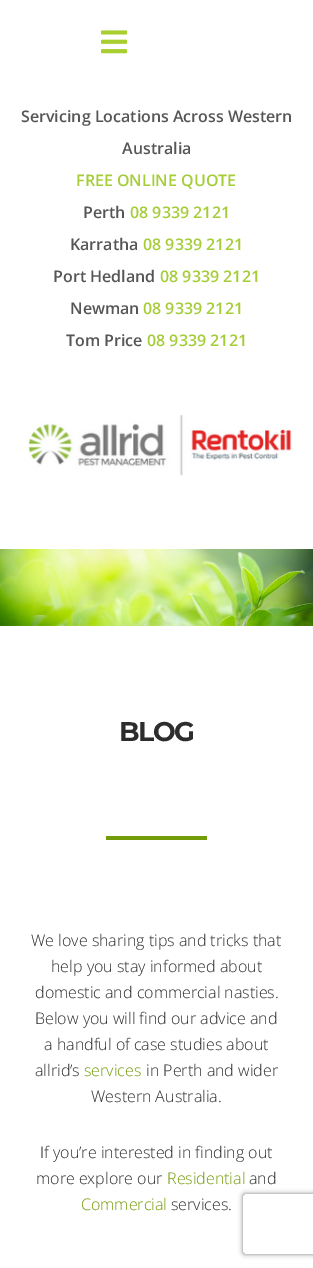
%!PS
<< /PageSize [313 1268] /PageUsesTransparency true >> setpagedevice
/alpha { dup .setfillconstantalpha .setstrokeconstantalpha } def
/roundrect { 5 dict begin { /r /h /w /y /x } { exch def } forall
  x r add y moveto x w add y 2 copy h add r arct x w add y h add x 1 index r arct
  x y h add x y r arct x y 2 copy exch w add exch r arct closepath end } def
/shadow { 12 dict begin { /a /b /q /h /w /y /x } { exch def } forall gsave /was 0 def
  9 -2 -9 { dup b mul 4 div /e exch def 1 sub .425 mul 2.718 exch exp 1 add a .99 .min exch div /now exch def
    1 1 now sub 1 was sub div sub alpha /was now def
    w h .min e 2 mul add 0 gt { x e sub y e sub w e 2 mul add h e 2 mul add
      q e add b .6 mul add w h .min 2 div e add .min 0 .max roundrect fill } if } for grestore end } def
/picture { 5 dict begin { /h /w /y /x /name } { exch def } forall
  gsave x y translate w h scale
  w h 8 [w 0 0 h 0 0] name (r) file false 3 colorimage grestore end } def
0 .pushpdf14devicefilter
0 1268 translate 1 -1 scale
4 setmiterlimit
1 setgray
0 0 313 1268 rectfill
(img1.rgb) 101 30 27 24 picture
/OpenSans-SemiBold [16 0 0 -16 0 0] selectfont
0.337 setgray
21 122 moveto (Servicing Locations Across Western) show
122 154 moveto (Australia) show
0.647 0.8 0.224 setrgbcolor
76 186 moveto (FREE ONLINE QUOTE) show
0.337 setgray
83 218 moveto (Perth) show
0.647 0.8 0.224 setrgbcolor
130 218 moveto (08 9339 2121) show
0.337 setgray
70 250 moveto (Karratha) show
0.647 0.8 0.224 setrgbcolor
143 250 moveto (08 9339 2121) show
0.337 setgray
53 282 moveto (Port Hedland) show
0.647 0.8 0.224 setrgbcolor
160 282 moveto (08 9339 2121) show
0.337 setgray
70 314 moveto (Newman) show
0.647 0.8 0.224 setrgbcolor
143 314 moveto (08 9339 2121) show
0.337 setgray
66 346 moveto (Tom Price) show
0.647 0.8 0.224 setrgbcolor
147 346 moveto (08 9339 2121) show
(img2.rgb) 28 415 264 61 picture
(img3.rgb) 0 549 313 77 picture
/Montserrat-Thin [27 0 0 -27 0 0] selectfont
0.176 setgray
119 741 moveto -1.5 0 (BLOG) ashow
0.455 0.608 0.035 setrgbcolor
106 836 101 4 rectfill
/OpenSans-Light [16 0 0 -16 0 0] selectfont
0.176 setgray
31 946 moveto (We love sharing tips and tricks that) show
51 972 moveto (help you stay informed about) show
35 998 moveto (domestic and commercial nasties.) show
35 1024 moveto (Below you will find our advice and) show
44 1050 moveto (a handful of case studies about) show
35 1076 moveto (allrid’s) show
0.455 0.608 0.035 setrgbcolor
84 1076 moveto (services) show
0.176 setgray
146 1076 moveto (in Perth and wider) show
91 1102 moveto (Western Australia.) show
40 1158 moveto (If you’re interested in finding out) show
36 1184 moveto (more explore our) show
0.455 0.608 0.035 setrgbcolor
167 1184 moveto (Residential) show
0.176 setgray
249 1184 moveto (and) show
0.455 0.608 0.035 setrgbcolor
81 1210 moveto (Commercial) show
0.176 setgray
171 1210 moveto (services.) show
gsave
newpath 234 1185 moveto 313 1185 lineto 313 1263 lineto 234 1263 lineto closepath 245 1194 moveto 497 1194 lineto 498 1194 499 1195 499 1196 curveto 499 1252 lineto 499 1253 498 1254 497 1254 curveto 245 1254 lineto 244 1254 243 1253 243 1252 curveto 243 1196 lineto 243 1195 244 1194 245 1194 curveto closepath eoclip newpath
0.502 setgray
243 1194 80 60 2 2.5 1 shadow
grestore
.poppdf14devicefilter showpage
